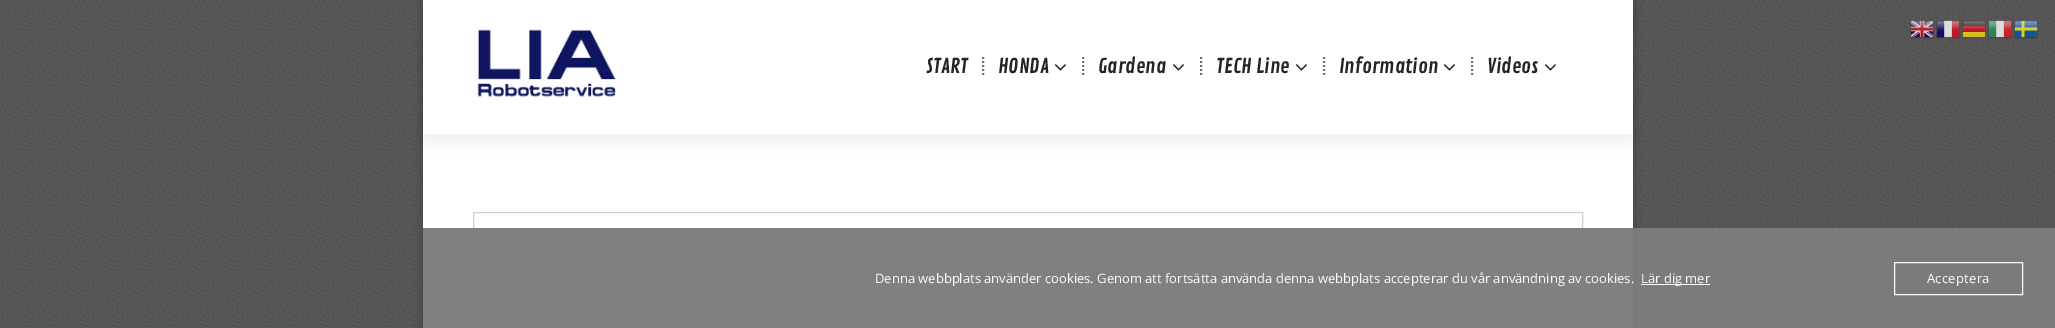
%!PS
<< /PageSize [2055 328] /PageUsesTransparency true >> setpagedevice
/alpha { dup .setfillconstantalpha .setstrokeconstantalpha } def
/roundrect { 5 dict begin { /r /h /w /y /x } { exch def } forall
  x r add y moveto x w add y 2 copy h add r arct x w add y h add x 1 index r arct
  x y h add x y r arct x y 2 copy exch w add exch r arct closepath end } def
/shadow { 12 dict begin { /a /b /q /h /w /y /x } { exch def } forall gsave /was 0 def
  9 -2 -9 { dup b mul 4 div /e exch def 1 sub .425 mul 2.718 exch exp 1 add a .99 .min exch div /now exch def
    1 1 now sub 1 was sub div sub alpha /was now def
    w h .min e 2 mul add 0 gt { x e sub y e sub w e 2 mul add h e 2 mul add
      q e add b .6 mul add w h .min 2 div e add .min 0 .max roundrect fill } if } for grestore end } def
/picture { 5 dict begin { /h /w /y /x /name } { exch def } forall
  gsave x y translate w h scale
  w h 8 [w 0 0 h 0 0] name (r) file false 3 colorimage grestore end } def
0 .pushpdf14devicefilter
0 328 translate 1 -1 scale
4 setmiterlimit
1 setgray
0 0 2055 328 rectfill
(img1.rgb) 0 0 2055 328 picture
0.188 setgray
423 0 1210 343 0 5 0.5 shadow
1 setgray
423 0 1210 328 rectfill
0.816 setgray
473.5 212.5 1109 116 rectstroke
(img2.rgb) 1910 20 24 19 picture
(img3.rgb) 1936 20 24 19 picture
(img4.rgb) 1962 20 24 19 picture
(img5.rgb) 1988 20 24 19 picture
(img6.rgb) 2014 20 24 19 picture
gsave
newpath 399 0 moveto 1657 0 lineto 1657 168 lineto 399 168 lineto closepath 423 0 moveto 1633 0 lineto 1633 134 lineto 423 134 lineto closepath eoclip newpath
0 setgray
423 10 1210 134 0 7.5 0.05 shadow
grestore
(img7.rgb) 477 29 139 68 picture
/ContrailOne-Regular [20 0 0 -20 0 0] selectfont
0.141 setgray
926 73 moveto (START) show
0.443 setgray
2 setlinewidth
[2 2] 0 setdash
newpath 983 57 moveto 983 77 lineto stroke
0.141 setgray
998 73 moveto (HONDA) show
(img8.rgb) 1054 64 12 7 picture
0.443 setgray
newpath 1083 57 moveto 1083 77 lineto stroke
0.141 setgray
1098 73 moveto (Gardena) show
(img8.rgb) 1172 64 12 7 picture
0.443 setgray
newpath 1201 57 moveto 1201 77 lineto stroke
0.141 setgray
1216 73 moveto (TECH Line) show
(img8.rgb) 1295 64 12 7 picture
0.443 setgray
newpath 1324 57 moveto 1324 77 lineto stroke
0.141 setgray
1339 73 moveto (Information) show
(img8.rgb) 1443 64 12 7 picture
0.443 setgray
newpath 1472 57 moveto 1472 77 lineto stroke
0.141 setgray
1487 73 moveto (Videos) show
(img8.rgb) 1544 64 12 7 picture
0.97 alpha
0.486 setgray
423 228 1632 100 rectfill
/OpenSans-Regular [13 0 0 -13 0 0] selectfont
1 alpha
0.984 setgray
875 283 moveto (Denna webbplats använder cookies. Genom att fortsätta använda denna webbplats accepterar du vår användning av cookies.) show
1641 284 69 1 rectfill
1641 283 moveto (Lär dig mer) show
1 setlinewidth
[] 0 setdash
1894.5 262.5 128 32 rectstroke
1927 283 moveto 0.25 0 (Acceptera) ashow
.poppdf14devicefilter showpage
